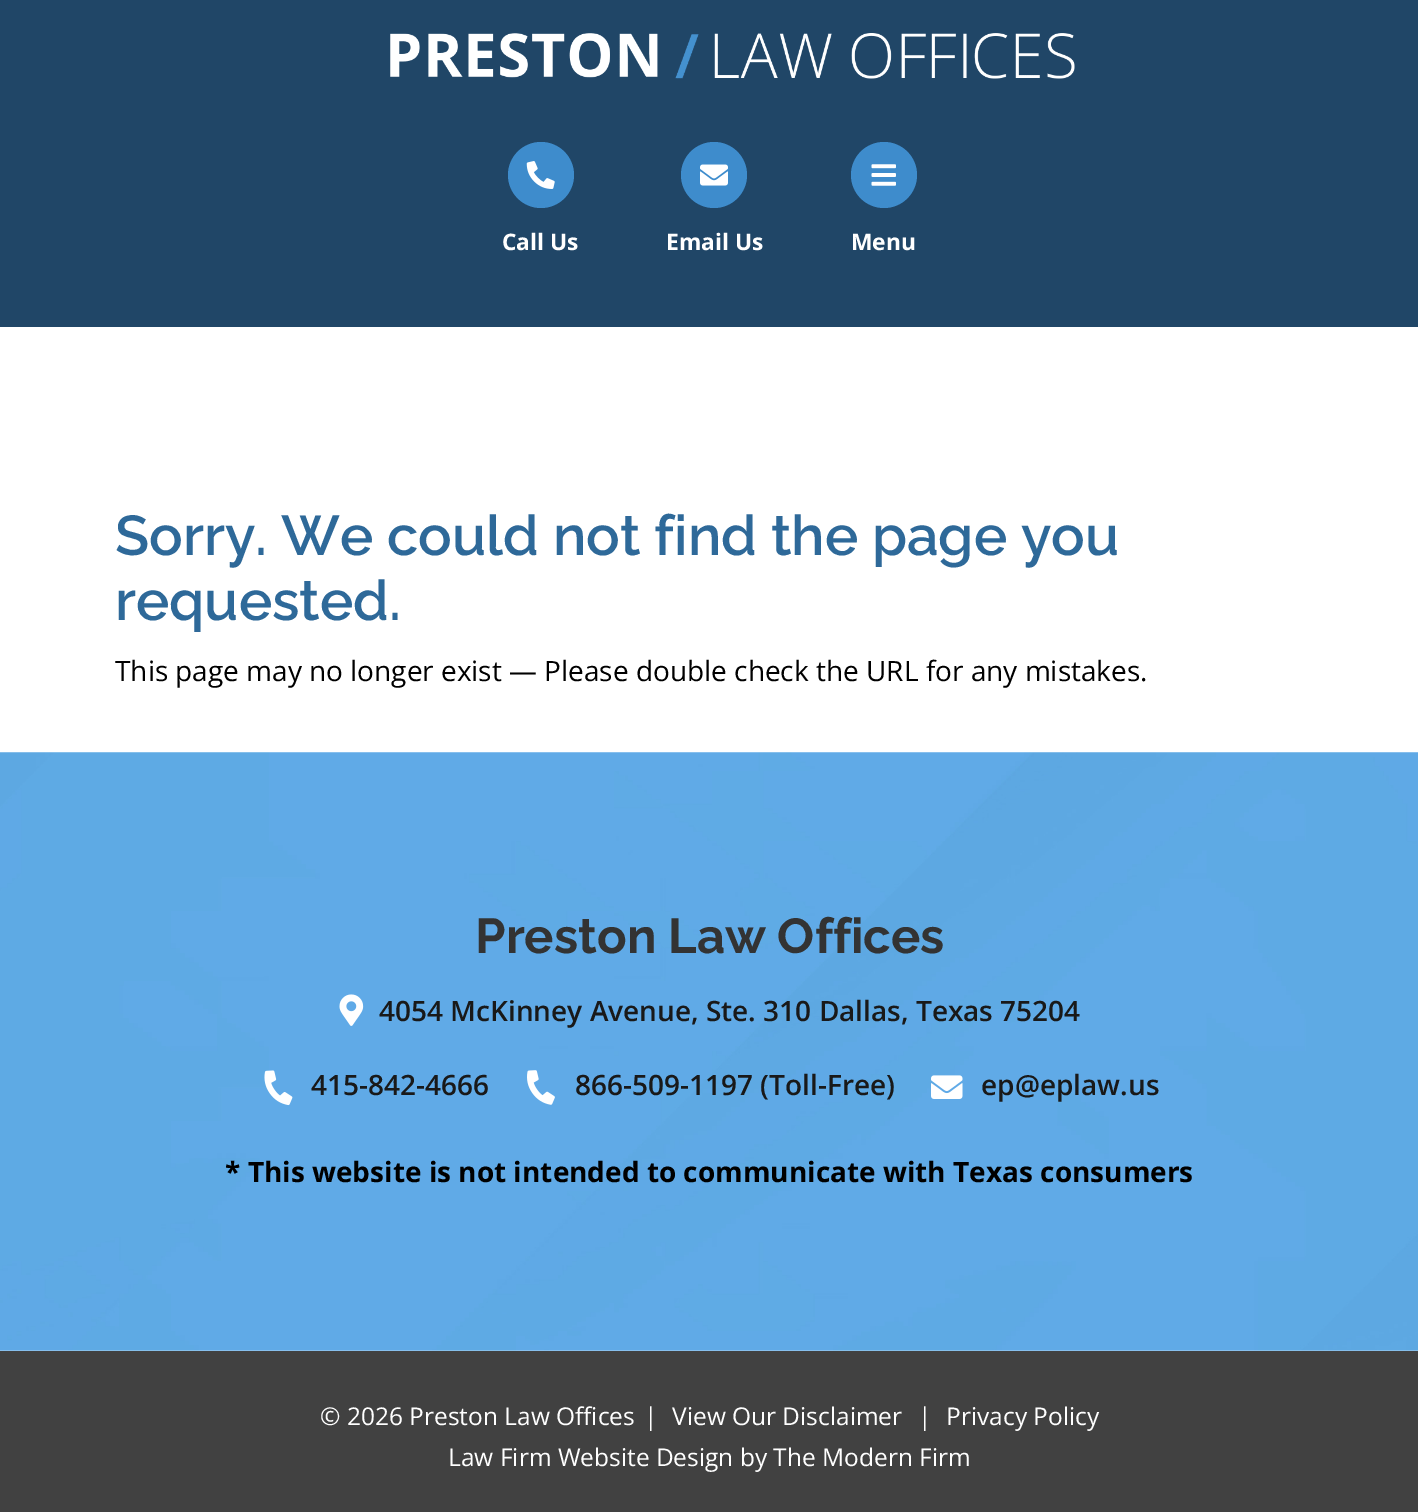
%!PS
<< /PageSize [1418 1512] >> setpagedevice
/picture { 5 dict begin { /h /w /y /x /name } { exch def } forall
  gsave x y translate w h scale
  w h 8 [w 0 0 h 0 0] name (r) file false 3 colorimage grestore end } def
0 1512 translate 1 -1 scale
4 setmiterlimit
1 setgray
0 0 1418 1512 rectfill
0.125 0.275 0.404 setrgbcolor
0 0 1418 327 rectfill
(img1.rgb) 390 33 685 46 picture
0.243 0.549 0.8 setrgbcolor
newpath 541 175 33 0 360 arc closepath fill
(img2.rgb) 526 161 29 28 picture
/OpenSans-Bold [22.75 0 0 -22.75 0 0] selectfont
1 setgray
502 250 moveto (Call Us) show
0.243 0.549 0.8 setrgbcolor
newpath 714 175 33 0 360 arc closepath fill
(img3.rgb) 700 164 28 22 picture
1 setgray
666 250 moveto (Email Us) show
0.243 0.549 0.8 setrgbcolor
newpath 884 175 33 0 360 arc closepath fill
(img4.rgb) 871 164 25 22 picture
1 setgray
851 250 moveto (Menu) show
/Raleway-SemiBold [56 0 0 -56 0 0] selectfont
0.18 0.412 0.6 setrgbcolor
115 555 moveto (Sorry. We could not find the page you) show
115 620 moveto (requested.) show
/OpenSans-Regular [28 0 0 -28 0 0] selectfont
0 setgray
115 681 moveto (This page may no longer exist — Please double check the URL for any mistakes.) show
(img5.rgb) 0 752 1418 599 picture
/Raleway-Bold [49 0 0 -49 0 0] selectfont
0.2 setgray
475 953 moveto (Preston Law Offices) show
(img6.rgb) 339 994 25 32 picture
/OpenSans-SemiBold [28 0 0 -28 0 0] selectfont
0.098 setgray
379 1021 moveto (4054 McKinney Avenue, Ste. 310 Dallas, Texas 75204) show
(img7.rgb) 264 1070 29 36 picture
311 1095 moveto (415-842-4666) show
(img8.rgb) 527 1070 28 35 picture
575 1095 moveto (866-509-1197 \(Toll-Free\)) show
(img9.rgb) 931 1075 32 24 picture
981 1095 moveto (ep@eplaw.us) show
/OpenSans-Bold [28 0 0 -28 0 0] selectfont
0 setgray
225 1182 moveto (* This website is not intended to communicate with Texas consumers) show
0.255 setgray
0 1351 1418 161 rectfill
/OpenSans-Regular [24.5 0 0 -24.5 0 0] selectfont
1 setgray
320 1425 moveto (© 2026 Preston Law Offices) show
644 1425 moveto (|) show
672 1425 moveto (View Our Disclaimer) show
918 1425 moveto (|) show
946 1425 moveto (Privacy Policy) show
448 1466 moveto (Law Firm Website Design by The Modern Firm) show
showpage
